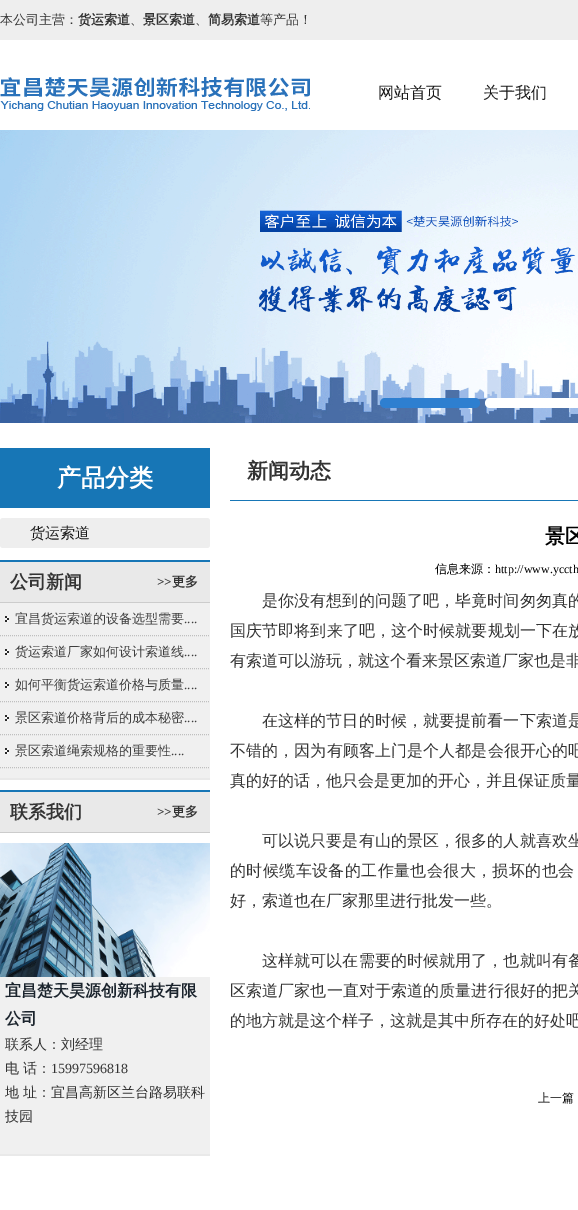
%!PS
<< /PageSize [578 1210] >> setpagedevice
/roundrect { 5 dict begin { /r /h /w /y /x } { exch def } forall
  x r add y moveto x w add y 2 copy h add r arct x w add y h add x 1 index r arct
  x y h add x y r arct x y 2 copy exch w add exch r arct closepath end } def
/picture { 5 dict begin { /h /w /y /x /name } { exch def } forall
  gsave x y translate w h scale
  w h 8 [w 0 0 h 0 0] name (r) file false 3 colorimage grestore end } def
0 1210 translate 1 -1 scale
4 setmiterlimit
1 setgray
0 0 578 1210 rectfill
0.933 setgray
0 0 578 40 rectfill
/WenQuanYiZenHei-Medium [13 0 0 -13 0 0] selectfont
0.2 setgray
0 24 moveto (本公司主营：) show
/WenQuanYiZenHei-Bold [13 0 0 -13 0 0] selectfont
78 24 moveto (货运索道) show
/WenQuanYiZenHei-Medium [13 0 0 -13 0 0] selectfont
130 24 moveto (、) show
/WenQuanYiZenHei-Bold [13 0 0 -13 0 0] selectfont
143 24 moveto (景区索道) show
/WenQuanYiZenHei-Medium [13 0 0 -13 0 0] selectfont
195 24 moveto (、) show
/WenQuanYiZenHei-Bold [13 0 0 -13 0 0] selectfont
208 24 moveto (简易索道) show
/WenQuanYiZenHei-Medium [13 0 0 -13 0 0] selectfont
260 24 moveto (等产品！) show
(img1.rgb) 0 77 310 34 picture
/WenQuanYiZenHei-Medium [16 0 0 -16 0 0] selectfont
0.102 setgray
378 98 moveto (网站首页) show
483 98 moveto (关于我们) show
(img2.rgb) 0 130 578 293 picture
0.18 0.498 0.816 setrgbcolor
380 398 100 10 5 roundrect fill
1 setgray
485 398 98 10 5 roundrect fill
0.09 0.463 0.714 setrgbcolor
0 448 210 60 rectfill
/WenQuanYiZenHei-Bold [24 0 0 -24 0 0] selectfont
1 setgray
57 486 moveto (产品分类) show
0.933 setgray
0 518 210 30 3 roundrect fill
/WenQuanYiZenHei-Medium [15 0 0 -15 0 0] selectfont
0.102 setgray
30 538 moveto (货运索道) show
0.09 0.463 0.714 setrgbcolor
0 560 210 2 rectfill
0.914 setgray
0 562 210 40 rectfill
0.8 setgray
0 602 210 1 rectfill
/WenQuanYiZenHei-Bold [18 0 0 -18 0 0] selectfont
0.2 setgray
10 588 moveto (公司新闻) show
/LiberationSerif-Bold [13 0 0 -13 0 0] selectfont
157 586 moveto (>>) show
/WenQuanYiZenHei-Bold [13 0 0 -13 0 0] selectfont
172 586 moveto (更多) show
0.941 setgray
0 603 210 175 rectfill
0.914 setgray
0 778 210 2 rectfill
(img3.rgb) 5 616 4 6 picture
gsave
0 423 210 733 rectclip
0.749 setgray
[1 1] 0 setdash
newpath 0 635.5 moveto 221 635.5 lineto stroke
grestore
/WenQuanYiZenHei-Medium [13 0 0 -13 0 0] selectfont
0.243 setgray
15 623 moveto (宜昌货运索道的设备选型需要) show
/LiberationSerif-Regular [13 0 0 -13 0 0] selectfont
184 623 moveto (....) show
(img3.rgb) 5 649 4 6 picture
gsave
0 423 210 733 rectclip
0.749 setgray
[1 1] 0 setdash
newpath 0 668.5 moveto 221 668.5 lineto stroke
grestore
/WenQuanYiZenHei-Medium [13 0 0 -13 0 0] selectfont
15 656 moveto (货运索道厂家如何设计索道线) show
/LiberationSerif-Regular [13 0 0 -13 0 0] selectfont
184 656 moveto (....) show
(img3.rgb) 5 682 4 6 picture
gsave
0 423 210 733 rectclip
0.749 setgray
[1 1] 0 setdash
newpath 0 701.5 moveto 221 701.5 lineto stroke
grestore
/WenQuanYiZenHei-Medium [13 0 0 -13 0 0] selectfont
15 689 moveto (如何平衡货运索道价格与质量) show
/LiberationSerif-Regular [13 0 0 -13 0 0] selectfont
184 689 moveto (....) show
(img3.rgb) 5 715 4 6 picture
gsave
0 423 210 733 rectclip
0.749 setgray
[1 1] 0 setdash
newpath 0 734.5 moveto 221 734.5 lineto stroke
grestore
/WenQuanYiZenHei-Medium [13 0 0 -13 0 0] selectfont
15 722 moveto (景区索道价格背后的成本秘密) show
/LiberationSerif-Regular [13 0 0 -13 0 0] selectfont
184 722 moveto (....) show
(img3.rgb) 5 748 4 6 picture
gsave
0 423 210 733 rectclip
0.749 setgray
[1 1] 0 setdash
newpath 0 767.5 moveto 221 767.5 lineto stroke
grestore
/WenQuanYiZenHei-Medium [13 0 0 -13 0 0] selectfont
15 755 moveto (景区索道绳索规格的重要性) show
/LiberationSerif-Regular [13 0 0 -13 0 0] selectfont
171 755 moveto (....) show
0.09 0.463 0.714 setrgbcolor
0 790 210 2 rectfill
0.914 setgray
0 792 210 40 rectfill
0.8 setgray
0 832 210 1 rectfill
/WenQuanYiZenHei-Bold [18 0 0 -18 0 0] selectfont
0.2 setgray
10 818 moveto (联系我们) show
/LiberationSerif-Bold [13 0 0 -13 0 0] selectfont
157 816 moveto (>>) show
/WenQuanYiZenHei-Bold [13 0 0 -13 0 0] selectfont
172 816 moveto (更多) show
0.941 setgray
0 977 210 177 rectfill
0.914 setgray
0 1154 210 2 rectfill
(img4.rgb) 0 843 210 134 picture
/WenQuanYiZenHei-Bold [16 0 0 -16 0 0] selectfont
0.106 0.141 0.176 setrgbcolor
5 996 moveto (宜昌楚天昊源创新科技有限) show
5 1024 moveto (公司) show
/WenQuanYiZenHei-Medium [14 0 0 -14 0 0] selectfont
0.2 setgray
5 1049 moveto (联系人：刘经理) show
5 1073 moveto (电) show
23 1073 moveto (话：) show
/LiberationSerif-Regular [14 0 0 -14 0 0] selectfont
51 1073 moveto (15997596818) show
/WenQuanYiZenHei-Medium [14 0 0 -14 0 0] selectfont
5 1097 moveto (地) show
23 1097 moveto (址：宜昌高新区兰台路易联科) show
5 1121 moveto (技园) show
0.09 0.463 0.714 setrgbcolor
230 500 348 1 rectfill
/WenQuanYiZenHei-Bold [21 0 0 -21 0 0] selectfont
0.2 setgray
247 478 moveto (新闻动态) show
/WenQuanYiZenHei-Bold [20 0 0 -20 0 0] selectfont
0 setgray
545 543 moveto (景区) show
/WenQuanYiZenHei-Medium [12 0 0 -12 0 0] selectfont
435 573 moveto (信息来源：) show
/LiberationSerif-Regular [12 0 0 -12 0 0] selectfont
495 573 moveto (http://www.yccth) show
/WenQuanYiZenHei-Medium [16 0 0 -16 0 0] selectfont
0.2 setgray
262 606 moveto 0.1 0 (是你没有想到的问题了吧，毕竟时间匆匆真的) ashow
230 636 moveto 0.1 0 (国庆节即将到来了吧，这个时候就要规划一下在放) ashow
230 666 moveto (有索道可以游玩，就这个看来景区索道厂家也是非) show
262 726 moveto 0.1 0 (在这样的节日的时候，就要提前看一下索道是) ashow
230 756 moveto 0.1 0 (不错的，因为有顾客上门是个人都是会很开心的吧) ashow
230 786 moveto (真的好的话，他只会是更加的开心，并且保证质量) show
262 846 moveto 0.1 0 (可以说只要是有山的景区，很多的人就喜欢坐) ashow
230 876 moveto 0.4 0 (的时候缆车设备的工作量也会很大，损坏的也会) ashow
230 906 moveto (好，索道也在厂家那里进行批发一些。) show
262 966 moveto 0.1 0 (这样就可以在需要的时候就用了，也就叫有备) ashow
230 996 moveto 0.1 0 (区索道厂家也一直对于索道的质量进行很好的把关) ashow
230 1026 moveto (的地方就是这个样子，这就是其中所存在的好处吧) show
/WenQuanYiZenHei-Medium [12 0 0 -12 0 0] selectfont
0 setgray
538 1102 moveto (上一篇) show
showpage
